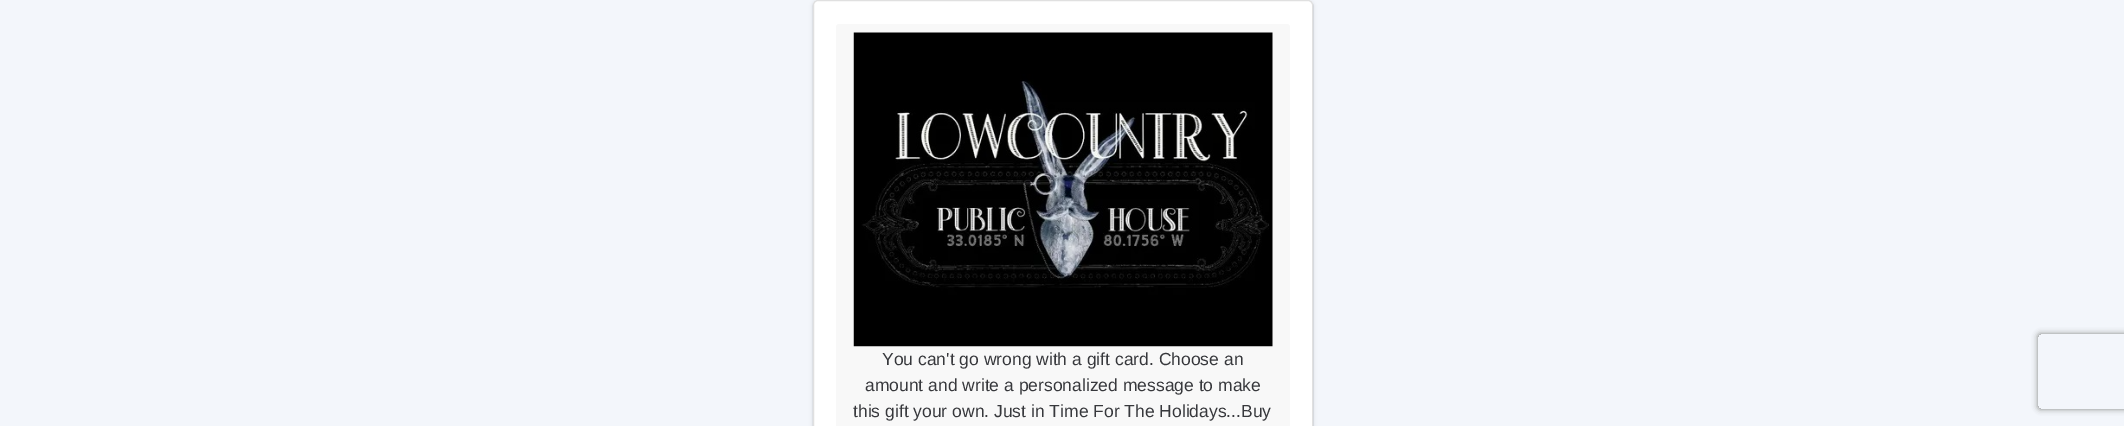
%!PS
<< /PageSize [2124 426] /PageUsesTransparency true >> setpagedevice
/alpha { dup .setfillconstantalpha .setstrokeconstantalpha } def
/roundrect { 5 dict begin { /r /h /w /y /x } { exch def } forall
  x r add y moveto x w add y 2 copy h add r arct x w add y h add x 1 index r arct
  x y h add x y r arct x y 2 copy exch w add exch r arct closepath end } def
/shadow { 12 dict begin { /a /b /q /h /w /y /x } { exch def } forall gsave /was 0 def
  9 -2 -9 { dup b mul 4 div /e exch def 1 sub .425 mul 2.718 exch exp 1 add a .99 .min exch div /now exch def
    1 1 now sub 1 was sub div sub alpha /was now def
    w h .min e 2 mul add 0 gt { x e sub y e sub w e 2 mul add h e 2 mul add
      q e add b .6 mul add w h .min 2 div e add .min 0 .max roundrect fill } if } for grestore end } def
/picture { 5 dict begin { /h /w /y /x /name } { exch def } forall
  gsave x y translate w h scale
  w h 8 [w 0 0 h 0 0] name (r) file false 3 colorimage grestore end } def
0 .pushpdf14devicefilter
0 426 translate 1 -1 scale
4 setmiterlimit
0.953 0.965 0.984 setrgbcolor
0 0 2124 426 rectfill
0 setgray
813 1 500 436 5 2 0.12 shadow
813 1 500 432 5 0.5 0.14 shadow
1 setgray
813 0 500 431 5 roundrect fill
0.12 alpha
0 setgray
813.5 0.5 499 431 4.5 roundrect stroke
1 alpha
0.973 setgray
newpath 839 24 moveto 1287 24 lineto 1288.5 24 1290 25.5 1290 27 curveto 1290 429 lineto 836 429 lineto 836 27 lineto 836 25.5 837.5 24 839 24 curveto closepath fill
(img1.rgb) 853 32 420 315 picture
/LiberationSans-Regular [17.5 0 0 -17.5 0 0] selectfont
0.216 0.22 0.235 setrgbcolor
882 365 moveto (You can't go wrong with a gift card. Choose an) show
865 391 moveto (amount and write a personalized message to make) show
853 417 moveto (this gift your own. Just in Time For The Holidays...Buy) show
gsave
newpath 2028 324 moveto 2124 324 lineto 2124 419 lineto 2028 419 lineto closepath 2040.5 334 moveto 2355.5 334 lineto 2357 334 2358 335 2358 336.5 curveto 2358 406.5 lineto 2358 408 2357 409 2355.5 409 curveto 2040.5 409 lineto 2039 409 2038 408 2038 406.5 curveto 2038 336.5 lineto 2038 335 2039 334 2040.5 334 curveto closepath eoclip newpath
0.502 setgray
2038 334 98 75 2.5 3 1 shadow
grestore
.poppdf14devicefilter showpage
